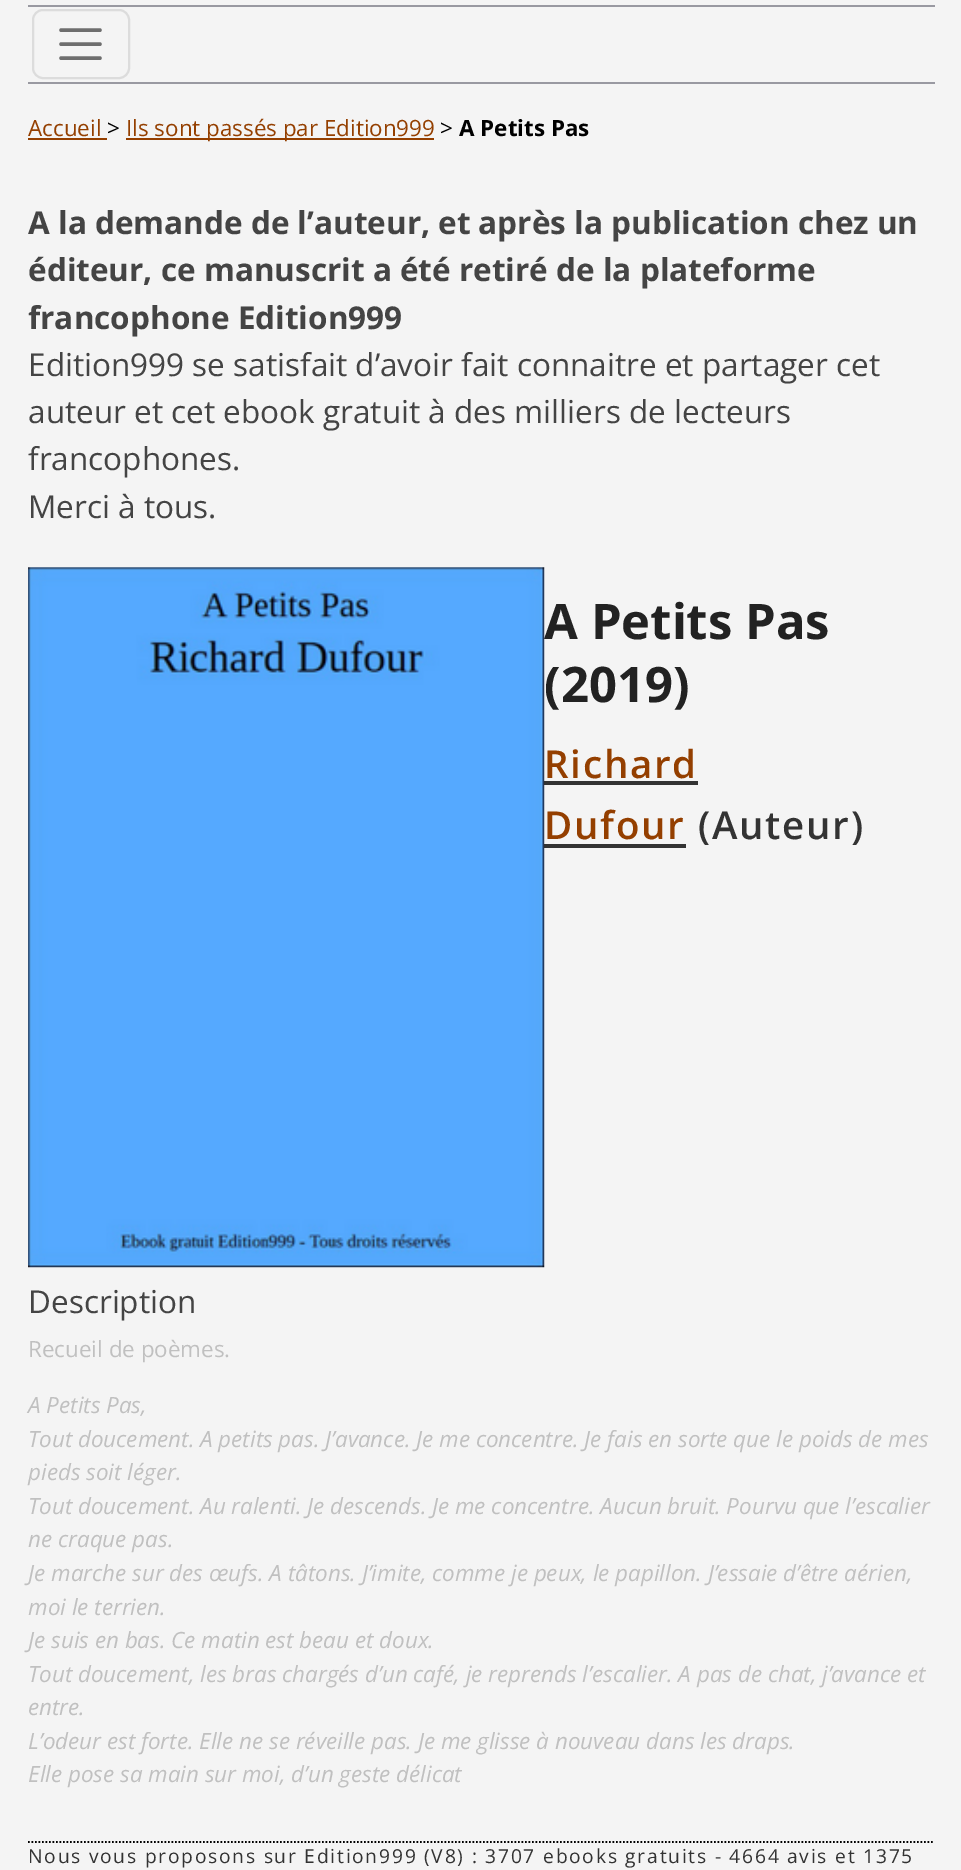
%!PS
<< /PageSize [961 1870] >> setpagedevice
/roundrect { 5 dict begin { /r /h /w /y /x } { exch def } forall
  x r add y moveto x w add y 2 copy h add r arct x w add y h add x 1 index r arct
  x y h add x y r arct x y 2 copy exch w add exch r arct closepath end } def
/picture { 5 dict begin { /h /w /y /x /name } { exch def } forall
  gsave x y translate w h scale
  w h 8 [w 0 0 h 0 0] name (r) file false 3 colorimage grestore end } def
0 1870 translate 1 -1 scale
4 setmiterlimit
0.957 setgray
0 0 961 1870 rectfill
0.6 0.6 0.631 setrgbcolor
28 5 907 2 rectfill
28 82 907 2 rectfill
0.863 setgray
2 setlinewidth
33 10 96 68 10 roundrect stroke
0.431 setgray
3.5 setlinewidth
1 setlinecap
newpath 61 30 moveto 100 30 lineto 61 44 moveto 100 44 lineto 61 58 moveto 100 58 lineto stroke
/OpenSans-Regular [22.4 0 0 -22.4 0 0] selectfont
0.58 0.247 0 setrgbcolor
28 136 moveto (Accueil) show
28 138 79 2 rectfill
0 setgray
107 136 moveto (>) show
0.58 0.247 0 setrgbcolor
126 138 308 2 rectfill
126 136 moveto (Ils sont passés par Edition999) show
0 setgray
440 136 moveto (>) show
/OpenSans-Bold [22.4 0 0 -22.4 0 0] selectfont
459 136 moveto (A Petits Pas) show
/OpenSans-Bold [31.5 0 0 -31.5 0 0] selectfont
0.267 setgray
28 234 moveto (A la demande de l’auteur, et après la publication chez un) show
28 281 moveto (éditeur, ce manuscrit a été retiré de la plateforme) show
28 329 moveto (francophone Edition999) show
/OpenSans-Regular [31.5 0 0 -31.5 0 0] selectfont
28 376 moveto (Edition999 se satisfait d’avoir fait connaitre et partager cet) show
28 423 moveto (auteur et cet ebook gratuit à des milliers de lecteurs) show
28 470 moveto (francophones.) show
28 518 moveto (Merci à tous.) show
(img1.rgb) 28 567 517 701 picture
/OpenSans-Bold [49 0 0 -49 0 0] selectfont
0.133 setgray
544 639 moveto (A Petits Pas) show
544 702 moveto (\(2019\)) show
/OpenSans-SemiBold [38.5 0 0 -38.5 0 0] selectfont
0.58 0.247 0 setrgbcolor
544 778 moveto 1.75 0 (Richard) ashow
0.2 setgray
544 781 154 4 rectfill
0.58 0.247 0 setrgbcolor
544 839 moveto 1.75 0 (Dufour) ashow
0.2 setgray
544 844 142 4 rectfill
698 839 moveto 1.75 0 (\(Auteur\)) ashow
/OpenSans-Regular [31.5 0 0 -31.5 0 0] selectfont
0.267 setgray
28 1313 moveto (Description) show
/OpenSans-Regular [22.4 0 0 -22.4 0 0] selectfont
0.753 setgray
28 1357 moveto (Recueil de poèmes.) show
/OpenSans-Italic [22.4 0 0 -22.4 0 0] selectfont
28 1413 moveto (A Petits Pas,) show
28 1447 moveto (Tout doucement. A petits pas. J’avance. Je me concentre. Je fais en sorte que le poids de mes) show
28 1480 moveto (pieds soit léger.) show
28 1514 moveto (Tout doucement. Au ralenti. Je descends. Je me concentre. Aucun bruit. Pourvu que l’escalier) show
28 1547 moveto (ne craque pas.) show
28 1581 moveto (Je marche sur des œufs. A tâtons. J’imite, comme je peux, le papillon. J’essaie d’être aérien,) show
28 1615 moveto (moi le terrien.) show
28 1648 moveto (Je suis en bas. Ce matin est beau et doux.) show
28 1682 moveto (Tout doucement, les bras chargés d’un café, je reprends l’escalier. A pas de chat, j’avance et) show
28 1715 moveto (entre.) show
28 1749 moveto (L’odeur est forte. Elle ne se réveille pas. Je me glisse à nouveau dans les draps.) show
28 1782 moveto (Elle pose sa main sur moi, d’un geste délicat) show
0 setgray
1.8 setlinewidth
0 setlinecap
[1.75 1.75] 0 setdash
newpath 28 1842 moveto 934.5 1842 lineto stroke
/OpenSans-Regular [19.25 0 0 -19.25 0 0] selectfont
0.2 setgray
28 1863 moveto 1.75 0 (Nous vous proposons sur Edition999 \(V8\) : 3707 ebooks gratuits - 4664 avis et 1375) ashow
showpage
